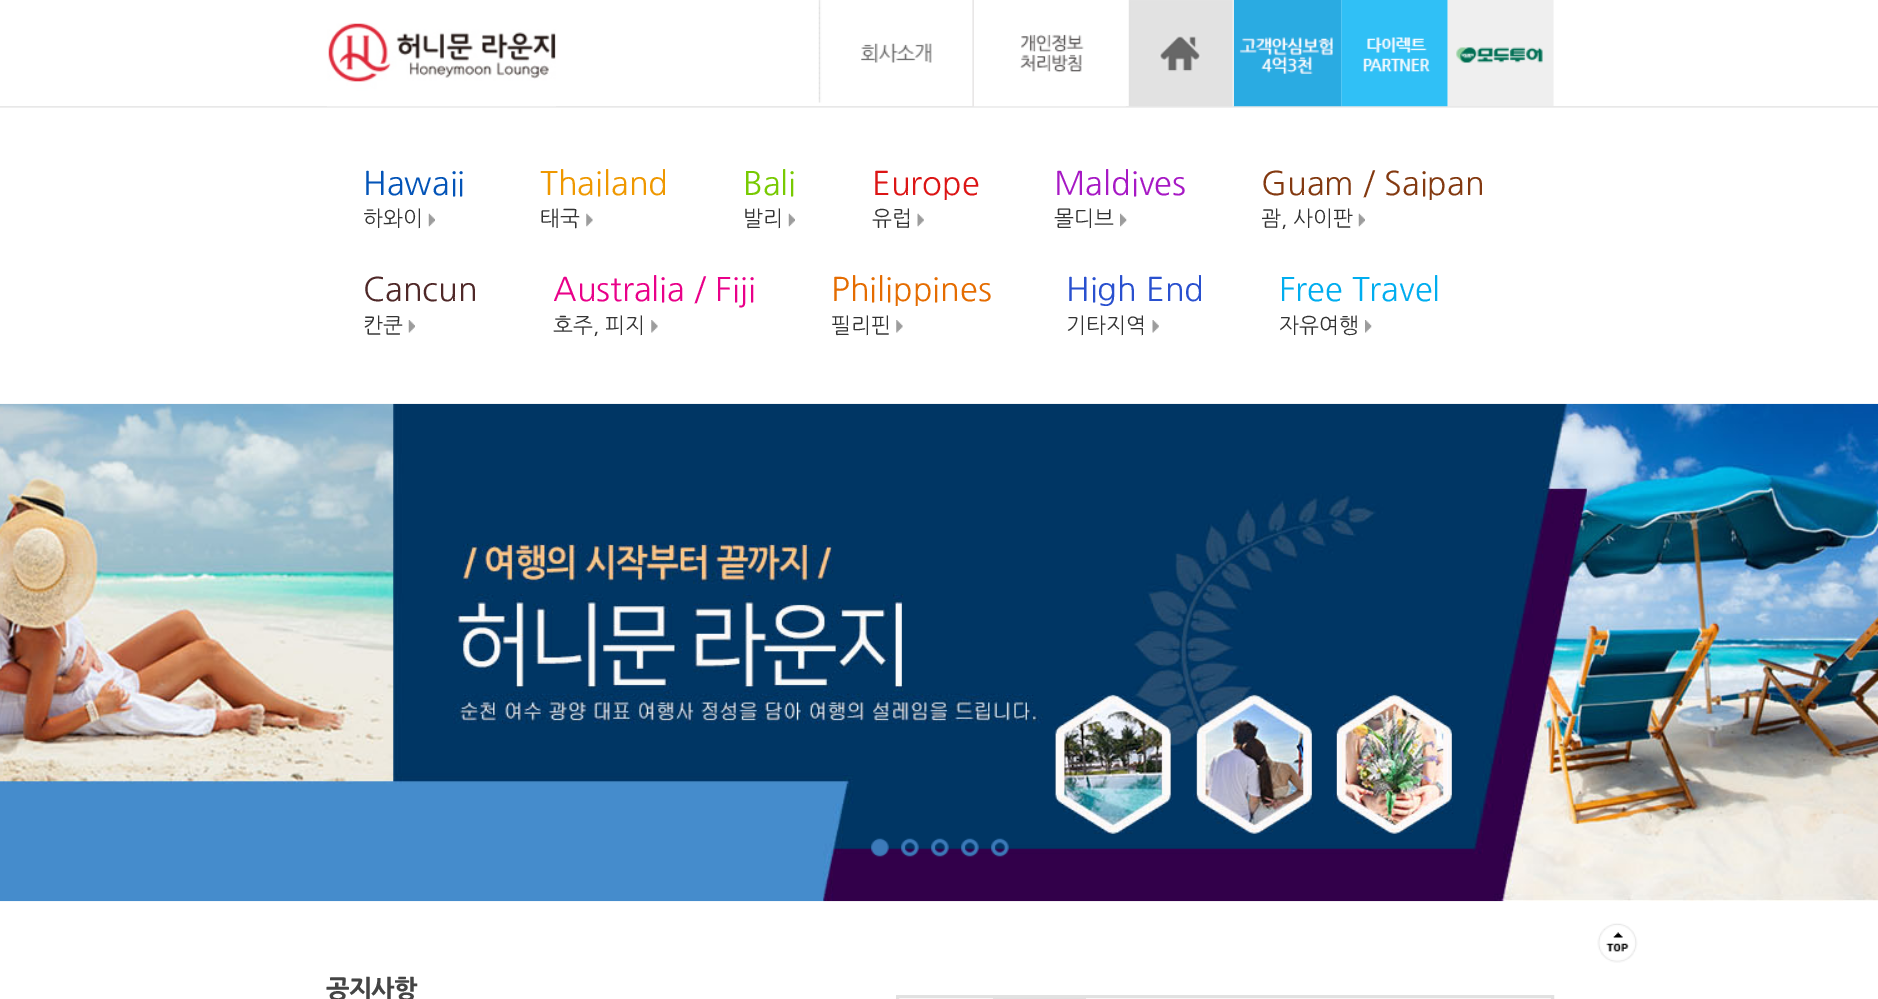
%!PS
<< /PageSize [1878 999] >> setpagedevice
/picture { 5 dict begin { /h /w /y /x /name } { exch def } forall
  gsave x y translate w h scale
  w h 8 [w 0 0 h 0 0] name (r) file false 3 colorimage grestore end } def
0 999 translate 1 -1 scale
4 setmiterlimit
1 setgray
0 0 1878 999 rectfill
(img1.rgb) 0 106 1878 2 picture
(img2.rgb) 327 23 229 84 picture
(img3.rgb) 818 0 114 103 picture
(img4.rgb) 972 0 154 107 picture
(img8.rgb) 1447 0 107 106 picture
(img7.rgb) 1341 0 107 107 picture
(img6.rgb) 1233 0 109 107 picture
(img5.rgb) 1128 0 106 107 picture
/NanumGothic-Regular [32.5 0 0 -32.5 0 0] selectfont
0.012 0.329 0.722 setrgbcolor
363 195 moveto (Hawaii) show
/NanumGothic-Regular [21.25 0 0 -21.25 0 0] selectfont
0.2 setgray
363 226 moveto (하와이) show
(img9.rgb) 428 213 7 14 picture
/NanumGothic-Regular [32.5 0 0 -32.5 0 0] selectfont
0.937 0.596 0 setrgbcolor
540 195 moveto (Thailand) show
/NanumGothic-Regular [21.25 0 0 -21.25 0 0] selectfont
0.2 setgray
540 226 moveto (태국) show
(img10.rgb) 586 213 7 14 picture
/NanumGothic-Regular [32.5 0 0 -32.5 0 0] selectfont
0.471 0.792 0.008 setrgbcolor
743 195 moveto (Bali) show
/NanumGothic-Regular [21.25 0 0 -21.25 0 0] selectfont
0.2 setgray
743 226 moveto (발리) show
(img9.rgb) 788 213 7 14 picture
/NanumGothic-Regular [32.5 0 0 -32.5 0 0] selectfont
0.863 0.082 0.082 setrgbcolor
872 195 moveto (Europe) show
/NanumGothic-Regular [21.25 0 0 -21.25 0 0] selectfont
0.2 setgray
872 226 moveto (유럽) show
(img11.rgb) 917 213 7 14 picture
/NanumGothic-Regular [32.5 0 0 -32.5 0 0] selectfont
0.655 0.098 0.773 setrgbcolor
1054 195 moveto (Maldives) show
/NanumGothic-Regular [21.25 0 0 -21.25 0 0] selectfont
0.2 setgray
1054 226 moveto (몰디브) show
(img12.rgb) 1120 213 7 14 picture
/NanumGothic-Regular [32.5 0 0 -32.5 0 0] selectfont
0.514 0.224 0.063 setrgbcolor
1261 195 moveto (Guam / Saipan) show
/NanumGothic-Regular [21.25 0 0 -21.25 0 0] selectfont
0.2 setgray
1261 226 moveto (괌, 사이판) show
(img13.rgb) 1358 213 7 14 picture
/NanumGothic-Regular [32.5 0 0 -32.5 0 0] selectfont
0.31 0.157 0.157 setrgbcolor
363 301 moveto (Cancun) show
/NanumGothic-Regular [21.25 0 0 -21.25 0 0] selectfont
0.2 setgray
363 333 moveto (칸쿤) show
(img14.rgb) 408 320 7 13 picture
/NanumGothic-Regular [32.5 0 0 -32.5 0 0] selectfont
0.914 0 0.537 setrgbcolor
553 301 moveto (Australia / Fiji) show
/NanumGothic-Regular [21.25 0 0 -21.25 0 0] selectfont
0.2 setgray
553 333 moveto (호주, 피지) show
(img15.rgb) 651 320 7 13 picture
/NanumGothic-Regular [32.5 0 0 -32.5 0 0] selectfont
0.898 0.424 0 setrgbcolor
831 301 moveto (Philippines) show
/NanumGothic-Regular [21.25 0 0 -21.25 0 0] selectfont
0.2 setgray
831 333 moveto (필리핀) show
(img15.rgb) 896 320 7 13 picture
/NanumGothic-Regular [32.5 0 0 -32.5 0 0] selectfont
0.161 0.314 0.812 setrgbcolor
1066 301 moveto (High End) show
/NanumGothic-Regular [21.25 0 0 -21.25 0 0] selectfont
0.2 setgray
1066 333 moveto (기타지역) show
(img16.rgb) 1152 320 7 13 picture
/NanumGothic-Regular [32.5 0 0 -32.5 0 0] selectfont
0 0.678 0.937 setrgbcolor
1279 301 moveto (Free Travel) show
/NanumGothic-Regular [21.25 0 0 -21.25 0 0] selectfont
0.2 setgray
1279 333 moveto (자유여행) show
(img17.rgb) 1365 320 7 13 picture
(img18.rgb) 0 403 1878 499 picture
(img19.rgb) 871 838 18 19 picture
(img20.rgb) 901 838 18 19 picture
(img20.rgb) 931 838 18 19 picture
(img20.rgb) 961 838 18 19 picture
(img20.rgb) 991 838 18 19 picture
(img21.rgb) 1597 923 41 40 picture
/NanumGothic-ExtraBold [25 0 0 -25 0 0] selectfont
0.267 setgray
326 998 moveto -1 0 (공지사항) ashow
0.882 setgray
3 setlinewidth
897.5 996.5 655 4 rectstroke
993 998 93 1 rectfill
showpage
